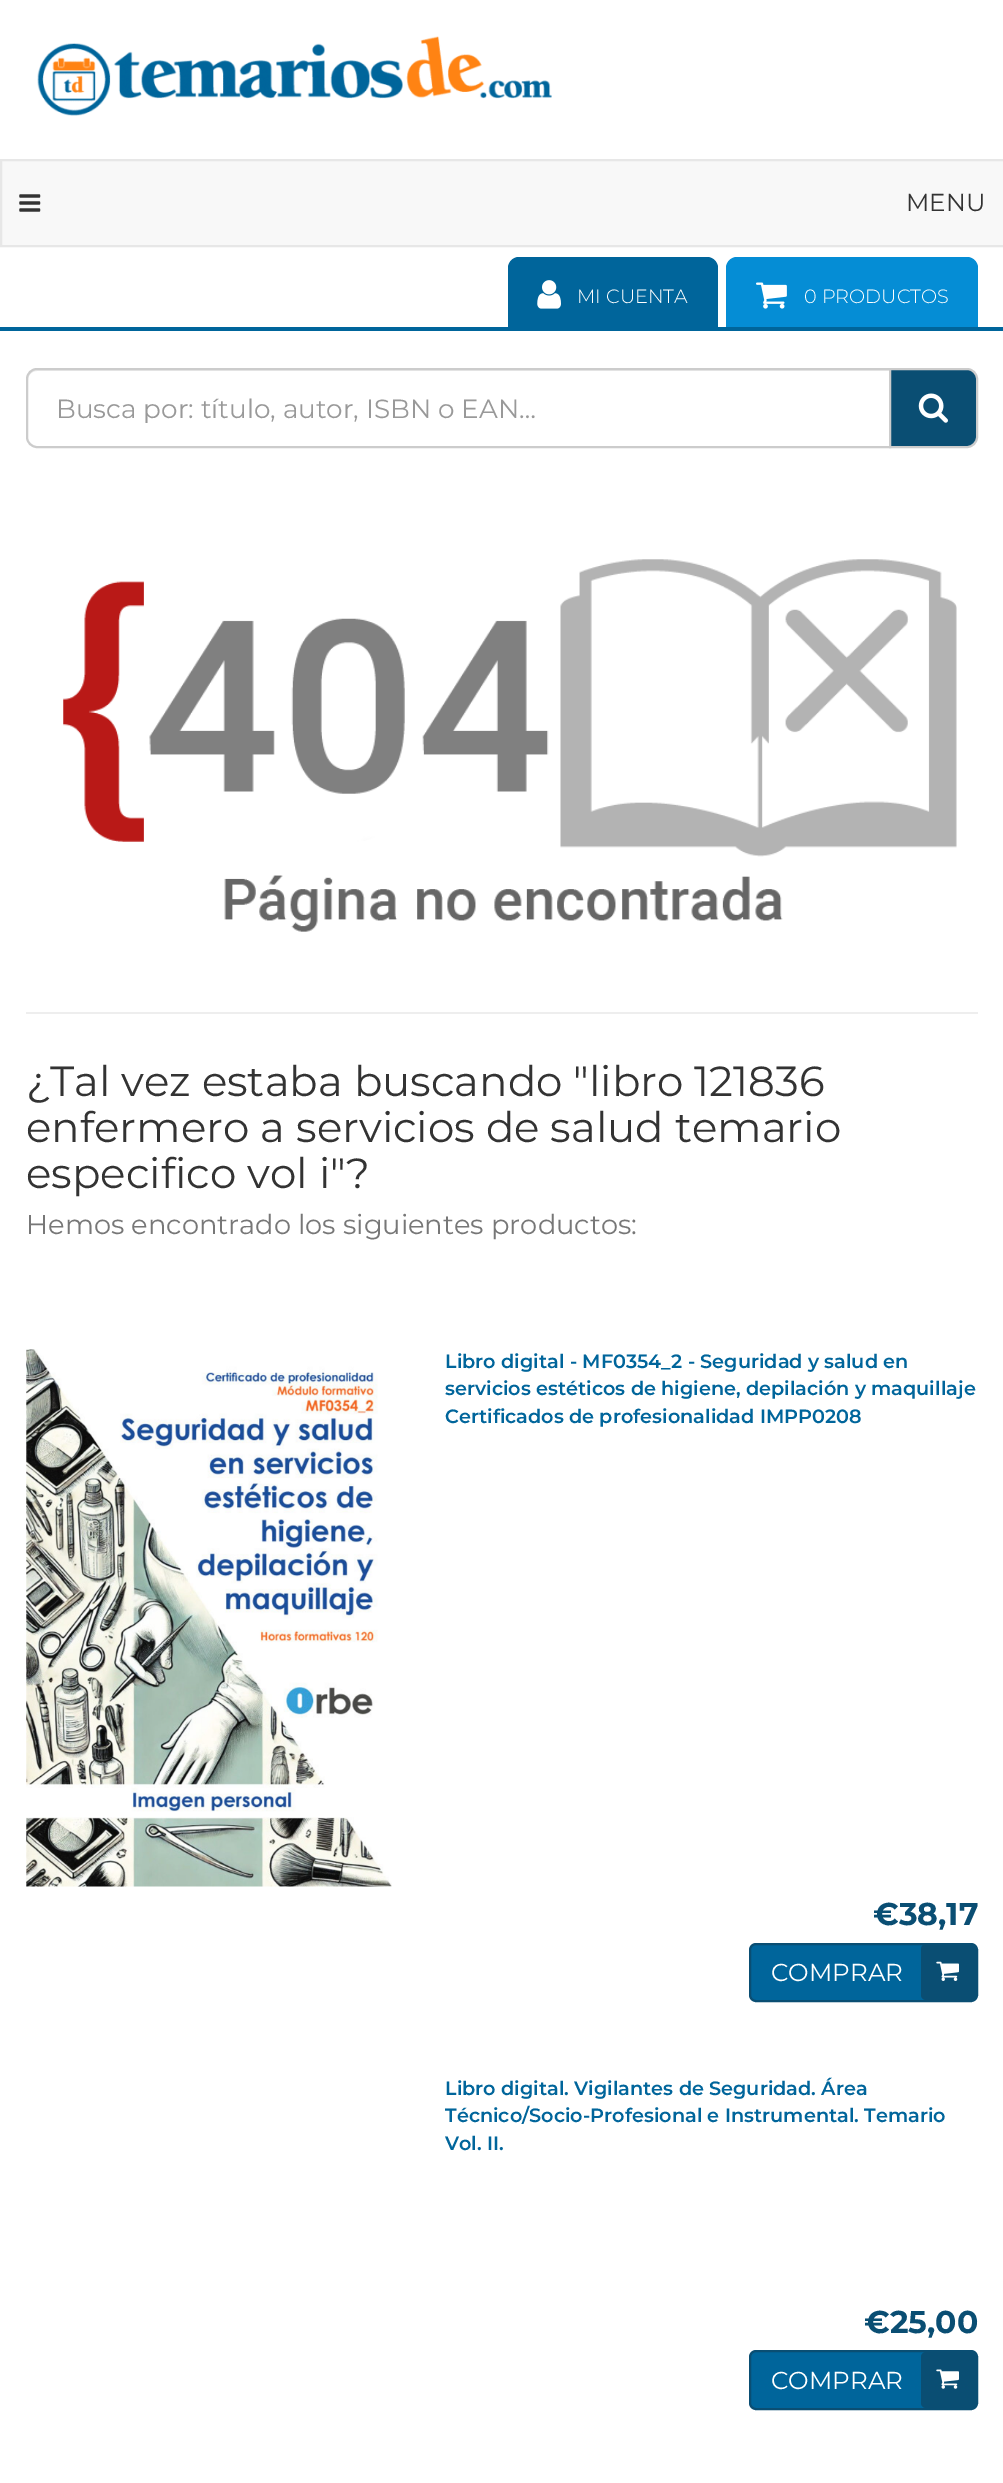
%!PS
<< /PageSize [1003 2483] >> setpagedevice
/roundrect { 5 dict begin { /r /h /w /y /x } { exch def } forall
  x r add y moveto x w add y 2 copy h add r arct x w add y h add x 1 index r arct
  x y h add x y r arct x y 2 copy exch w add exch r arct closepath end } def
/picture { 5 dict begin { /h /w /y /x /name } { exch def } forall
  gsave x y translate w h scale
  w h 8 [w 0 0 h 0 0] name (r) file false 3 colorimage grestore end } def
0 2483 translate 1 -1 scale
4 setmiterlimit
1 setgray
0 0 1003 2483 rectfill
(img1.rgb) 37 36 515 80 picture
0 0.396 0.608 setrgbcolor
0 327 1003 4 rectfill
0.973 setgray
newpath 1 160 moveto 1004 160 lineto 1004 246 lineto 1 246 lineto closepath gsave fill grestore
0.906 setgray
2 setlinewidth
stroke
(img2.rgb) 19 194 22 18 picture
/Montserrat-Regular [24.5 0 0 -24.5 0 0] selectfont
0.2 setgray
906 211 moveto (MENU) show
0 0.396 0.608 setrgbcolor
newpath 519 257 moveto 707 257 lineto 713 257 718 262 718 268 curveto 718 327 lineto 508 327 lineto 508 268 lineto 508 262 513 257 519 257 curveto closepath fill
(img3.rgb) 537 280 24 29 picture
/Montserrat-Light [19.25 0 0 -19.25 0 0] selectfont
1 setgray
577 303 moveto (MI CUENTA) show
0.02 0.553 0.835 setrgbcolor
newpath 737 257 moveto 967 257 lineto 973 257 978 262 978 268 curveto 978 327 lineto 726 327 lineto 726 268 lineto 726 262 731 257 737 257 curveto closepath fill
(img4.rgb) 756 282 31 27 picture
1 setgray
804 303 moveto (0 PRODUCTOS) show
0.925 setgray
newpath 37 371 moveto 889 371 lineto 889 369 lineto 37 369 lineto 31 369 28 374 28 380 curveto 28 375 32 371 37 371 curveto closepath fill
0.8 setgray
newpath 37 369 moveto 890 369 lineto 890 447 lineto 37 447 lineto 31.5 447 27 442.5 27 437 curveto 27 379 lineto 27 373.5 31.5 369 37 369 curveto closepath stroke
/Montserrat-Regular [26.25 0 0 -26.25 0 0] selectfont
0.6 setgray
56 418 moveto (Busca por: título, autor, ISBN o EAN…) show
0.039 0.306 0.451 setrgbcolor
newpath 890 369 moveto 967 369 lineto 972.5 369 977 373.5 977 379 curveto 977 437 lineto 977 442.5 972.5 447 967 447 curveto 890 447 lineto closepath gsave fill grestore
0.8 setgray
stroke
(img5.rgb) 918 393 30 30 picture
(img6.rgb) 63 559 894 373 picture
0.933 setgray
26 1012 952 2 rectfill
/Montserrat-Regular [42 0 0 -42 0 0] selectfont
0.2 setgray
26 1096 moveto (¿Tal vez estaba buscando "libro 121836) show
26 1142 moveto (enfermero a servicios de salud temario) show
26 1188 moveto (especifico vol i"?) show
/Montserrat-Regular [27.3 0 0 -27.3 0 0] selectfont
0.467 setgray
26 1234 moveto (Hemos encontrado los siguientes productos:) show
(img7.rgb) 26 1349 366 538 picture
/Montserrat-SemiBold [19.25 0 0 -19.25 0 0] selectfont
0 0.396 0.608 setrgbcolor
445 1368 moveto (Libro digital - MF0354_2 - Seguridad y salud en) show
445 1395 moveto (servicios estéticos de higiene, depilación y maquillaje) show
445 1423 moveto (Certificados de profesionalidad IMPP0208) show
/Montserrat-Bold [31.5 0 0 -31.5 0 0] selectfont
0.039 0.306 0.451 setrgbcolor
873 1925 moveto (€38,17) show
0 0.396 0.608 setrgbcolor
750 1944 227 57 6 roundrect gsave fill grestore
0.039 0.306 0.451 setrgbcolor
stroke
/Montserrat-Regular [24.5 0 0 -24.5 0 0] selectfont
1 setgray
771 1981 moveto (COMPRAR) show
0.039 0.306 0.451 setrgbcolor
921 1944 56 56 5 roundrect fill
(img8.rgb) 936 1961 23 20 picture
/Montserrat-SemiBold [19.25 0 0 -19.25 0 0] selectfont
0 0.396 0.608 setrgbcolor
445 2095 moveto (Libro digital. Vigilantes de Seguridad. Área) show
gsave
445 2076 533 82 rectclip
445 2122 moveto (Técnico/Socio-Profesional e Instrumental. Temario) show
grestore
445 2150 moveto (Vol. II.) show
/Montserrat-Bold [31.5 0 0 -31.5 0 0] selectfont
0.039 0.306 0.451 setrgbcolor
864 2333 moveto (€25,00) show
0 0.396 0.608 setrgbcolor
750 2351 227 58 6 roundrect gsave fill grestore
0.039 0.306 0.451 setrgbcolor
stroke
/Montserrat-Regular [24.5 0 0 -24.5 0 0] selectfont
1 setgray
771 2389 moveto (COMPRAR) show
0.039 0.306 0.451 setrgbcolor
921 2352 56 56 5 roundrect fill
(img9.rgb) 936 2369 23 20 picture
showpage
